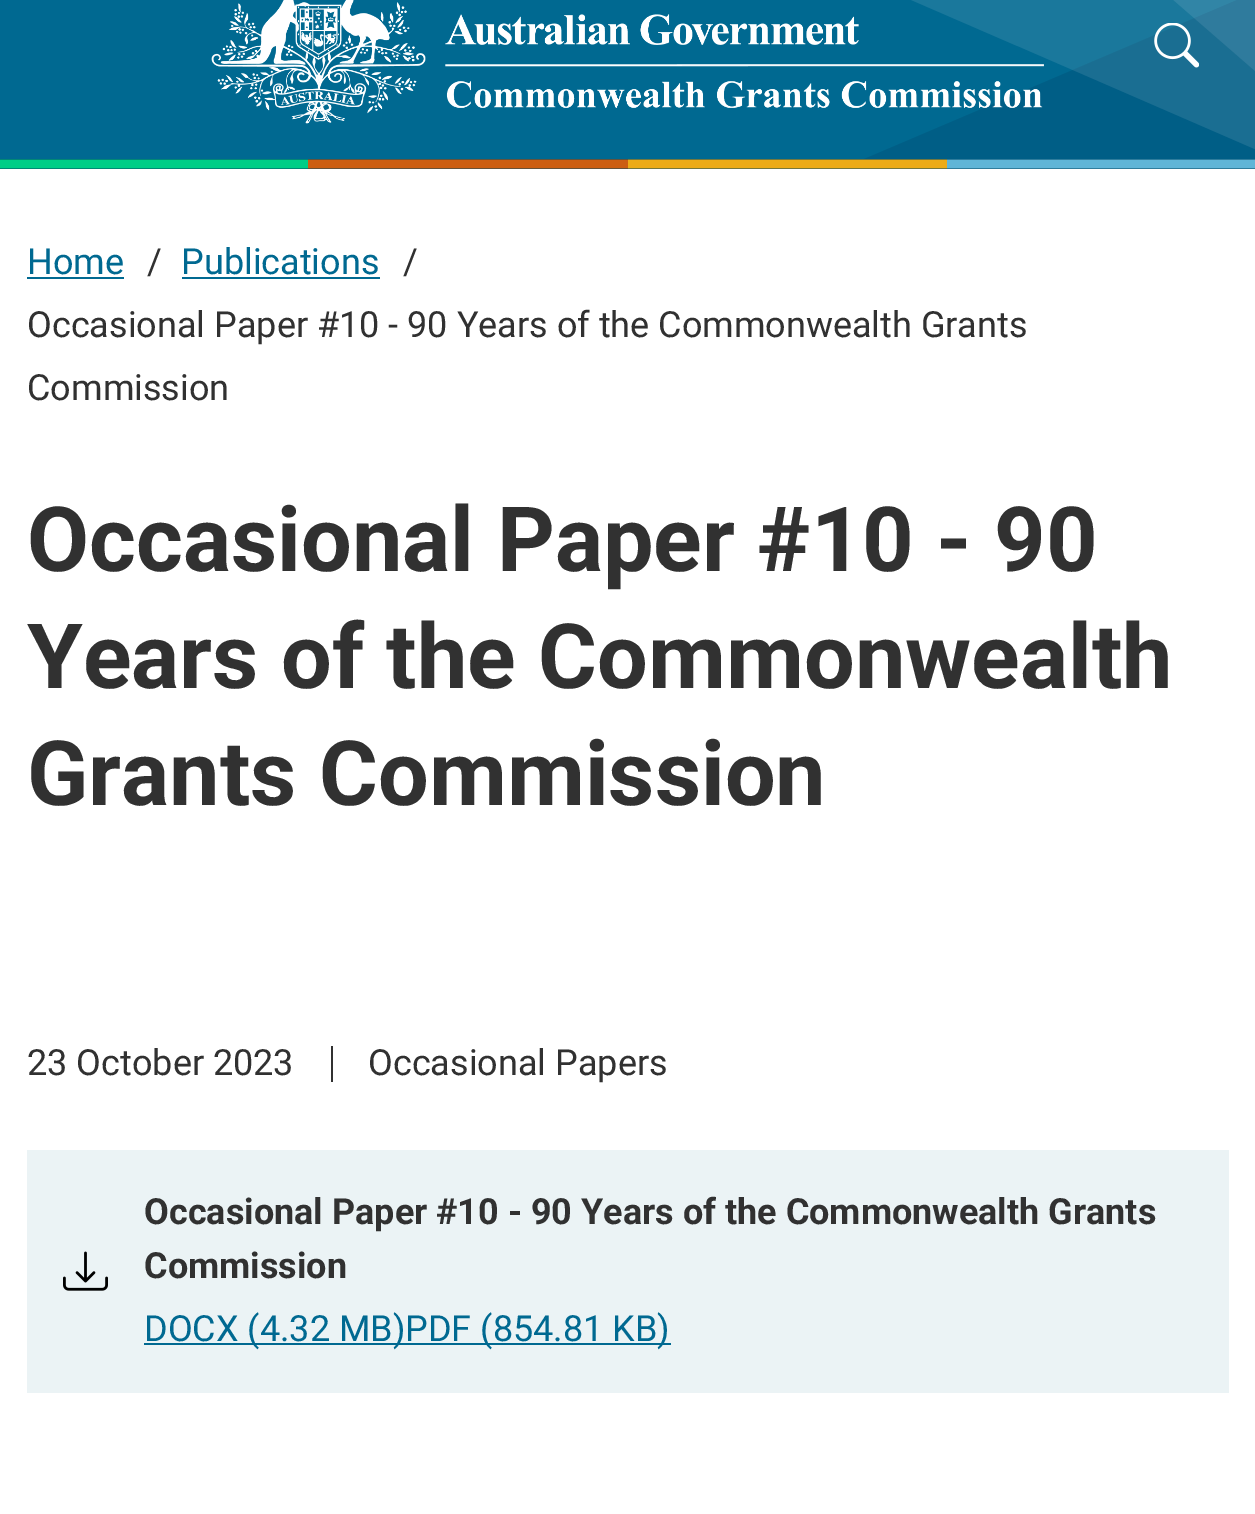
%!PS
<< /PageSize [1255 1514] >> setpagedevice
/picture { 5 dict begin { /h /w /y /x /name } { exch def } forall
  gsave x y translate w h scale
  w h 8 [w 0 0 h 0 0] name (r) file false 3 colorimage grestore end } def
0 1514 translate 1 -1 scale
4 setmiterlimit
1 setgray
0 0 1255 1514 rectfill
0 0.271 0.388 setrgbcolor
0 159 1255 10 rectfill
(img1.rgb) 0 159 1255 10 picture
(img2.rgb) 0 0 1255 160 picture
(img3.rgb) 211 0 833 124 picture
(img4.rgb) 1154 23 45 45 picture
/Roboto-Regular [36 0 0 -36 0 0] selectfont
0 0.412 0.569 setrgbcolor
27 274 moveto (Home) show
27 277 97 2 rectfill
0.192 setgray
147 274 moveto (/) show
0 0.412 0.569 setrgbcolor
181 274 moveto (Publications) show
182 277 198 2 rectfill
0.192 setgray
403 274 moveto (/) show
27 337 moveto (Occasional Paper #10 - 90 Years of the Commonwealth Grants) show
27 400 moveto (Commission) show
/Roboto-Bold [90 0 0 -90 0 0] selectfont
27 571 moveto (Occasional Paper #10 - 90) show
27 688 moveto (Years of the Commonwealth) show
27 805 moveto (Grants Commission) show
331 1046 2 36 rectfill
/Roboto-Regular [36 0 0 -36 0 0] selectfont
27 1075 moveto (23 October 2023) show
368 1075 moveto (Occasional Papers) show
0.922 0.953 0.961 setrgbcolor
27 1150 1202 243 rectfill
(img5.rgb) 63 1251 45 40 picture
/Roboto-Bold [36 0 0 -36 0 0] selectfont
0.192 setgray
144 1224 moveto (Occasional Paper #10 - 90 Years of the Commonwealth Grants) show
144 1278 moveto (Commission) show
0 0.412 0.569 setrgbcolor
144 1343 527 2 rectfill
/Roboto-Regular [36 0 0 -36 0 0] selectfont
144 1341 moveto (DOCX \(4.32 MB\)PDF \(854.81 KB\)) show
showpage
